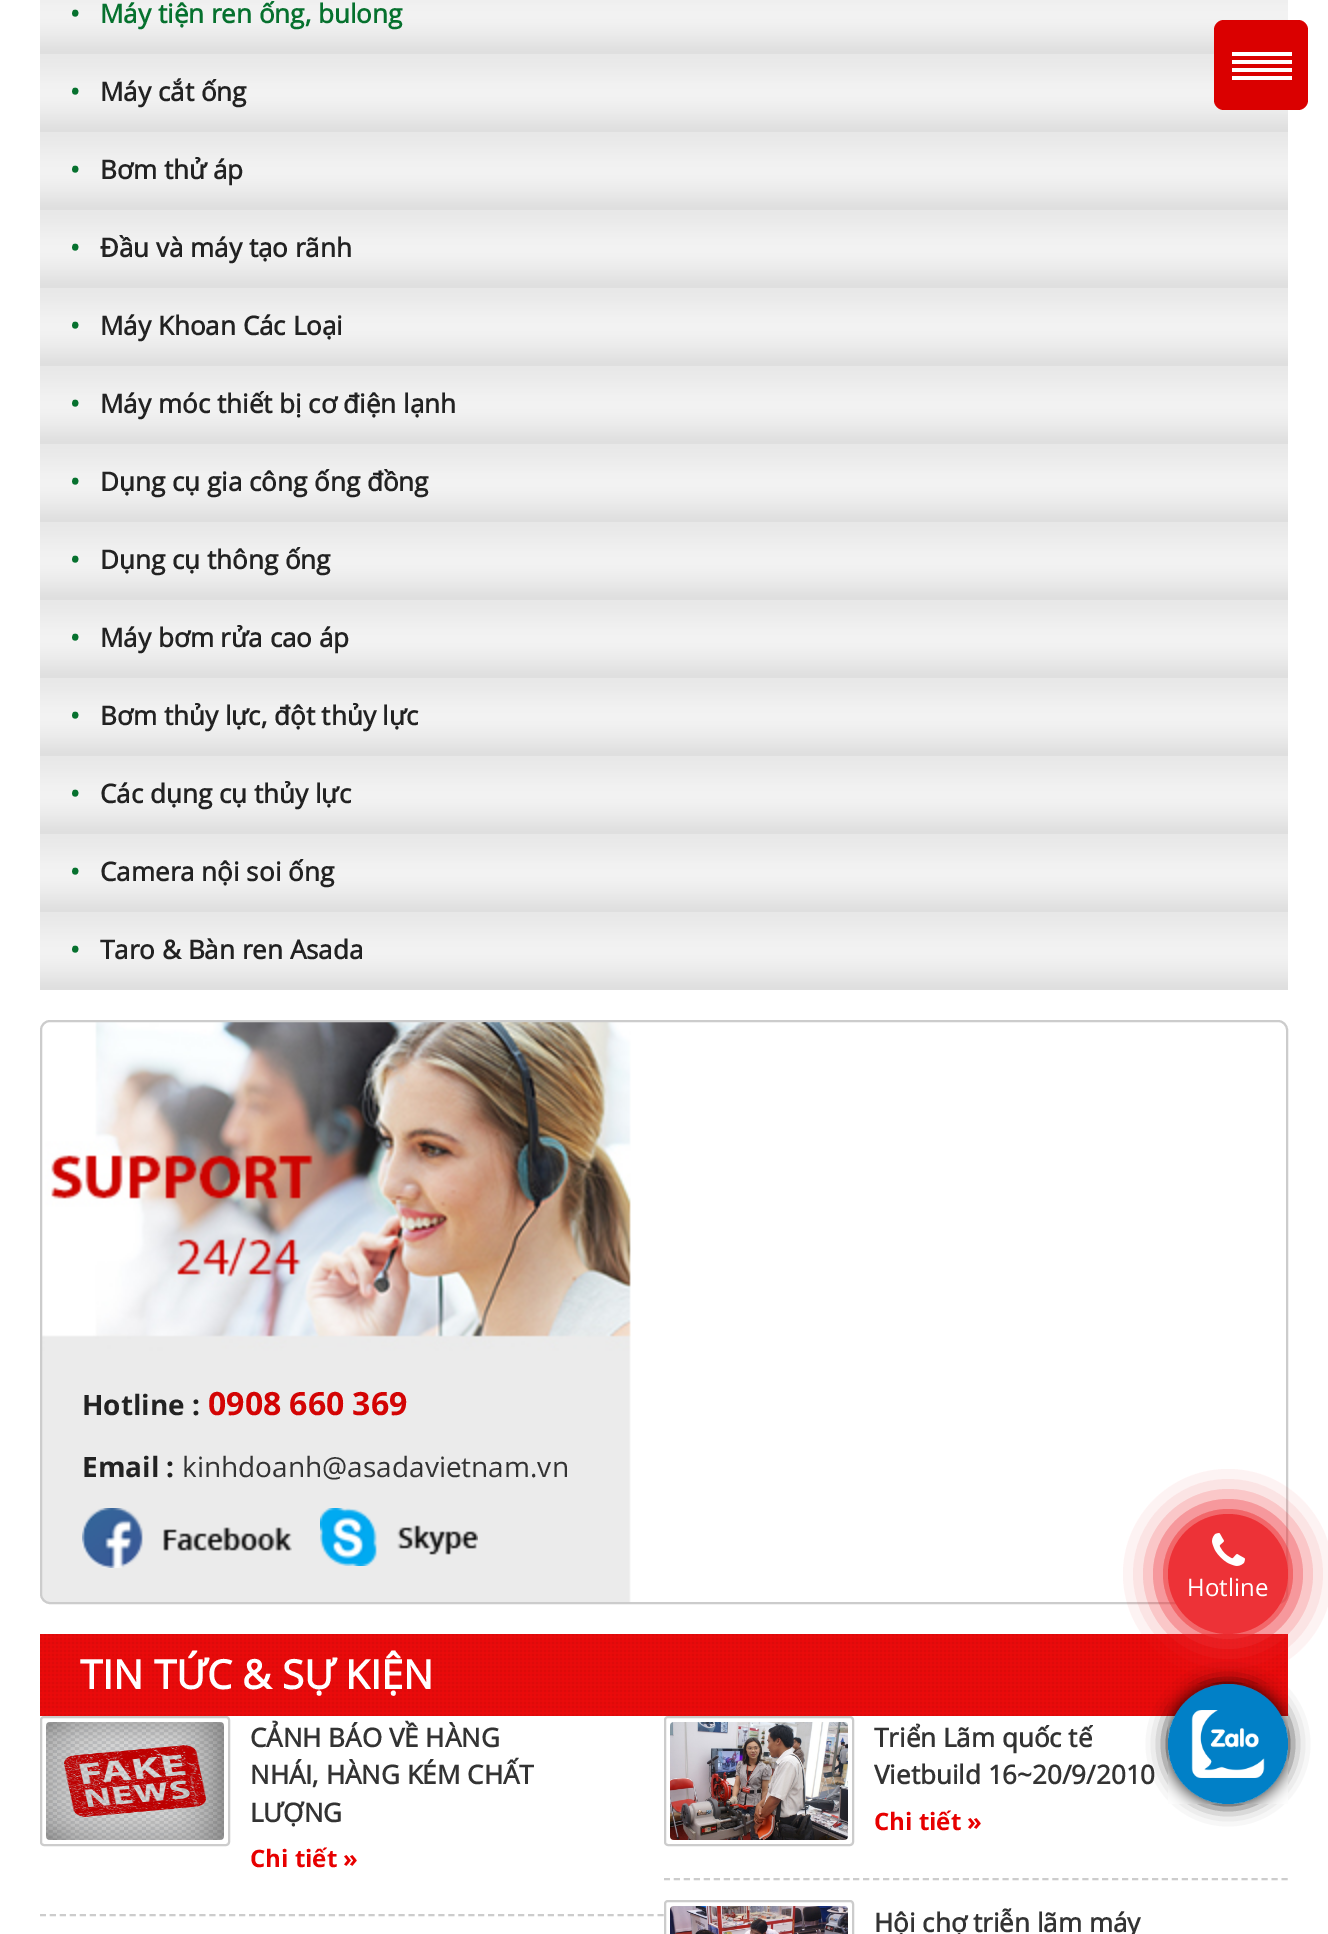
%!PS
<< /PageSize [1328 1934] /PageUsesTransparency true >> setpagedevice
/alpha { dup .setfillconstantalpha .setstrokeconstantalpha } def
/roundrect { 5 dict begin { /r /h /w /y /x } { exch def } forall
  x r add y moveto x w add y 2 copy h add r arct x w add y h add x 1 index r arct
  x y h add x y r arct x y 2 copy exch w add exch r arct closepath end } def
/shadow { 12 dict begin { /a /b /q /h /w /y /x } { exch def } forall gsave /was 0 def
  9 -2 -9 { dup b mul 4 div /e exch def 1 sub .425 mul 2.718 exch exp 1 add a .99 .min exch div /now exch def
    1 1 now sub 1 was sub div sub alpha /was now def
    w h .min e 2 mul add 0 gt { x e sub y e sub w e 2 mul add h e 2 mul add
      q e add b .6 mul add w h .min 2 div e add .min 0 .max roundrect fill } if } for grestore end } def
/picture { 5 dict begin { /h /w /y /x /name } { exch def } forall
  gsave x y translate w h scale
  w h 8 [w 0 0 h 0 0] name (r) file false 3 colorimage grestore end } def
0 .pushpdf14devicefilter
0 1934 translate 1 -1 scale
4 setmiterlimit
1 setgray
0 0 1328 1934 rectfill
(img1.rgb) 40 0 1248 54 picture
/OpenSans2-Bold [26 0 0 -26 0 0] selectfont
0.024 0.443 0.18 setrgbcolor
70 23 moveto (•) show
100 23 moveto (Máy tiện ren ống, bulong) show
(img2.rgb) 40 54 1248 78 picture
70 101 moveto (•) show
0.133 setgray
100 101 moveto (Máy cắt ống) show
(img2.rgb) 40 132 1248 78 picture
0.024 0.443 0.18 setrgbcolor
70 179 moveto (•) show
0.133 setgray
100 179 moveto (Bơm thử áp) show
(img2.rgb) 40 210 1248 78 picture
0.024 0.443 0.18 setrgbcolor
70 257 moveto (•) show
0.133 setgray
100 257 moveto (Đầu và máy tạo rãnh) show
(img2.rgb) 40 288 1248 78 picture
0.024 0.443 0.18 setrgbcolor
70 335 moveto (•) show
0.133 setgray
100 335 moveto (Máy Khoan Các Loại) show
(img2.rgb) 40 366 1248 78 picture
0.024 0.443 0.18 setrgbcolor
70 413 moveto (•) show
0.133 setgray
100 413 moveto (Máy móc thiết bị cơ điện lạnh) show
(img2.rgb) 40 444 1248 78 picture
0.024 0.443 0.18 setrgbcolor
70 491 moveto (•) show
0.133 setgray
100 491 moveto (Dụng cụ gia công ống đồng) show
(img2.rgb) 40 522 1248 78 picture
0.024 0.443 0.18 setrgbcolor
70 569 moveto (•) show
0.133 setgray
100 569 moveto (Dụng cụ thông ống) show
(img2.rgb) 40 600 1248 78 picture
0.024 0.443 0.18 setrgbcolor
70 647 moveto (•) show
0.133 setgray
100 647 moveto (Máy bơm rửa cao áp) show
(img2.rgb) 40 678 1248 78 picture
0.024 0.443 0.18 setrgbcolor
70 725 moveto (•) show
0.133 setgray
100 725 moveto (Bơm thủy lực, đột thủy lực) show
(img2.rgb) 40 756 1248 78 picture
0.024 0.443 0.18 setrgbcolor
70 803 moveto (•) show
0.133 setgray
100 803 moveto (Các dụng cụ thủy lực) show
(img2.rgb) 40 834 1248 78 picture
0.024 0.443 0.18 setrgbcolor
70 881 moveto (•) show
0.133 setgray
100 881 moveto (Camera nội soi ống) show
(img2.rgb) 40 912 1248 78 picture
0.024 0.443 0.18 setrgbcolor
70 959 moveto (•) show
0.133 setgray
100 959 moveto (Taro & Bàn ren Asada) show
(img3.rgb) 42 1022 589 582 picture
0.8 setgray
2 setlinewidth
41 1021 1246 582 9 roundrect stroke
/OpenSans-Bold [28 0 0 -28 0 0] selectfont
0.133 setgray
82 1415 moveto (Hotline :) show
/OpenSans-Bold [32 0 0 -32 0 0] selectfont
0.827 0.016 0.016 setrgbcolor
208 1415 moveto (0908 660 369) show
/OpenSans-Bold [28 0 0 -28 0 0] selectfont
0.133 setgray
82 1477 moveto (Email :) show
/OpenSans-Regular [28 0 0 -28 0 0] selectfont
0.2 setgray
182 1477 moveto (kinhdoanh@asadavietnam.vn) show
(img4.rgb) 82 1508 210 60 picture
(img5.rgb) 320 1508 158 58 picture
(img6.rgb) 40 1634 1248 82 picture
/OpenSans2-Bold [40 0 0 -40 0 0] selectfont
1 setgray
80 1689 moveto (TIN TỨC & SỰ KIỆN) show
0.8 setgray
[6 3.96] 0 setdash
newpath 40 1915 moveto 664 1915 lineto stroke
[] 0 setdash
41 1717 188 128 3 roundrect stroke
(img7.rgb) 46 1722 178 118 picture
/OpenSans2-Bold [26 0 0 -26 0 0] selectfont
0.2 setgray
250 1747 moveto (CẢNH BÁO VỀ HÀNG) show
250 1784 moveto (NHÁI, HÀNG KÉM CHẤT) show
250 1822 moveto (LƯỢNG) show
/OpenSans-Bold [24 0 0 -24 0 0] selectfont
0.906 0 0 setrgbcolor
250 1867 moveto (Chi tiết ») show
0.8 setgray
[6 3.96] 0 setdash
newpath 664 1879 moveto 1288 1879 lineto stroke
[] 0 setdash
665 1717 188 128 3 roundrect stroke
(img8.rgb) 670 1722 178 118 picture
/OpenSans2-Bold [26 0 0 -26 0 0] selectfont
0.2 setgray
874 1747 moveto (Triển Lãm quốc tế) show
874 1784 moveto (Vietbuild 16~20/9/2010) show
/OpenSans-Bold [24 0 0 -24 0 0] selectfont
0.906 0 0 setrgbcolor
874 1830 moveto (Chi tiết ») show
0.8 setgray
665 1901 188 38 3 roundrect stroke
(img9.rgb) 670 1906 178 28 picture
/OpenSans2-Bold [26 0 0 -26 0 0] selectfont
0.2 setgray
874 1932 moveto (Hội chợ triễn lãm máy) show
0.855 0 0 setrgbcolor
1214 20 94 90 10 roundrect fill
1 setgray
1232 52 60 4 rectfill
1232 60 60 4 rectfill
1232 68 60 4 rectfill
1232 76 60 4 rectfill
0.929 0.196 0.216 setrgbcolor
newpath 1228 1574 60 0 360 arc closepath fill
0 setgray
1168 1684 120 120 60 10 1 shadow
(img11.rgb) 1168 1684 120 120 picture
gsave
newpath 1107 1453 moveto 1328 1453 lineto 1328 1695 lineto 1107 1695 lineto closepath 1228 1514 moveto 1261 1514 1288 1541 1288 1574 curveto 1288 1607 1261 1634 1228 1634 curveto 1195 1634 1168 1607 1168 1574 curveto 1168 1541 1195 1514 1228 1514 curveto closepath eoclip newpath
0.929 0.196 0.216 setrgbcolor
1168 1514 120 120 60 20 1 shadow
grestore
(img10.rgb) 1212 1533 33 33 picture
gsave
newpath 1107 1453 moveto 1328 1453 lineto 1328 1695 lineto 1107 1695 lineto closepath 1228 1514 moveto 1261 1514 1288 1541 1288 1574 curveto 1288 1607 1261 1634 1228 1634 curveto 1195 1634 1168 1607 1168 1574 curveto 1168 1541 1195 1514 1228 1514 curveto closepath eoclip newpath
0.929 0.196 0.216 setrgbcolor
1168 1514 120 120 60 20 1 shadow
grestore
/OpenSans-Regular [24 0 0 -24 0 0] selectfont
1 setgray
1187 1596 moveto (Hotline) show
.poppdf14devicefilter showpage
